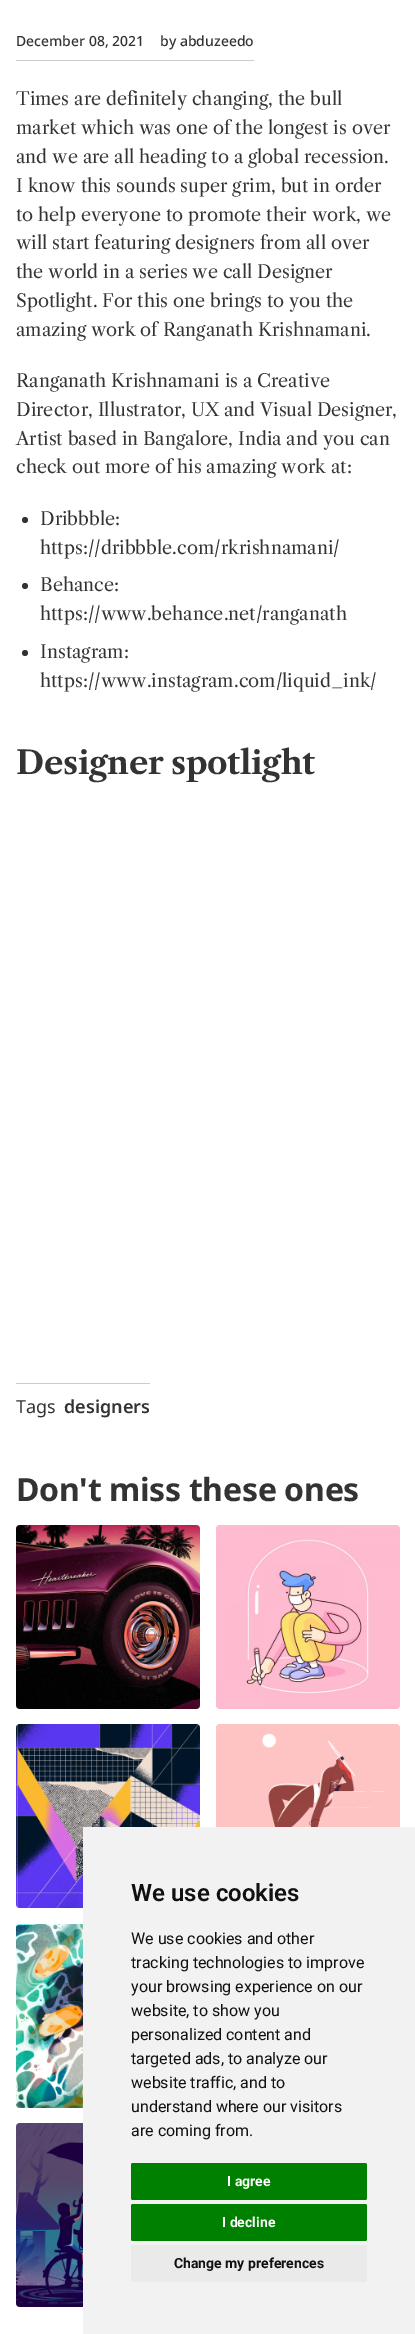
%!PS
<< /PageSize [415 2334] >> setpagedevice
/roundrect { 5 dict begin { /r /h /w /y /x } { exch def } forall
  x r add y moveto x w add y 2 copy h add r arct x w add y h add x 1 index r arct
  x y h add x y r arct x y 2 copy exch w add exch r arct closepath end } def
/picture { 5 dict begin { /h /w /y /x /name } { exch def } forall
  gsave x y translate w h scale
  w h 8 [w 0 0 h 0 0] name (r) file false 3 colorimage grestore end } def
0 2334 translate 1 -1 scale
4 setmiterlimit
1 setgray
0 0 415 2334 rectfill
0.8 setgray
16 60 238 1 rectfill
/NotoSans-Medium [14 0 0 -14 0 0] selectfont
0.2 setgray
16 46 moveto (December 08, 2021) show
160 46 moveto (by abduzeedo) show
/LibreCaslonText-Regular [18 0 0 -18 0 0] selectfont
16 105 moveto (Times are definitely changing, the bull) show
16 134 moveto (market which was one of the longest is over) show
16 163 moveto (and we are all heading to a global recession.) show
16 192 moveto (I know this sounds super grim, but in order) show
16 221 moveto (to help everyone to promote their work, we) show
16 249 moveto (will start featuring designers from all over) show
16 278 moveto (the world in a series we call Designer) show
16 307 moveto (Spotlight. For this one brings to you the) show
16 336 moveto (amazing work of Ranganath Krishnamani.) show
16 387 moveto (Ranganath Krishnamani is a Creative) show
16 416 moveto (Director, Illustrator, UX and Visual Designer,) show
16 445 moveto (Artist based in Bangalore, India and you can) show
16 473 moveto (check out more of his amazing work at:) show
newpath 25 520 3 0 360 arc closepath fill
40 525 moveto (Dribbble:) show
40 554 moveto (https://dribbble.com/rkrishnamani/) show
newpath 25 586 3 0 360 arc closepath fill
40 591 moveto (Behance:) show
40 620 moveto (https://www.behance.net/ranganath) show
newpath 25 653 3 0 360 arc closepath fill
40 658 moveto (Instagram:) show
40 687 moveto (https://www.instagram.com/liquid_ink/) show
/LibreCaslonText-Bold [32 0 0 -32 0 0] selectfont
16 774 moveto -0.3 0 (Designer spotlight) ashow
0.8 setgray
16 1383 134 1 rectfill
/NotoSans-Regular [18 0 0 -18 0 0] selectfont
0.2 setgray
16 1413 moveto (Tags) show
/NotoSans-SemiBold [18 0 0 -18 0 0] selectfont
64 1413 moveto (designers) show
/NotoSans-Bold [32 0 0 -32 0 0] selectfont
16 1501 moveto -0.3 0 (Don't miss these ones) ashow
(img1.rgb) 16 1525 184 184 picture
(img2.rgb) 216 1525 184 184 picture
(img3.rgb) 16 1724 184 184 picture
(img4.rgb) 216 1724 184 103 picture
(img5.rgb) 16 1924 67 184 picture
(img6.rgb) 16 2123 67 184 picture
0.949 setgray
83 1827 332 507 rectfill
/Roboto-SemiBold [24 0 0 -24 0 0] selectfont
0.067 setgray
131 1901 moveto (We use cookies) show
/Roboto-Regular [16 0 0 -16 0 0] selectfont
131 1944 moveto (We use cookies and other) show
131 1968 moveto (tracking technologies to improve) show
131 1992 moveto (your browsing experience on our) show
131 2016 moveto (website, to show you) show
131 2040 moveto (personalized content and) show
131 2064 moveto (targeted ads, to analyze our) show
131 2088 moveto (website traffic, and to) show
131 2112 moveto (understand where our visitors) show
131 2136 moveto (are coming from.) show
0 0.502 0 setrgbcolor
131 2163 236 37 2 roundrect fill
/Roboto-Bold [14 0 0 -14 0 0] selectfont
1 setgray
227 2186 moveto (I agree) show
0 0.502 0 setrgbcolor
131 2204 236 37 2 roundrect fill
1 setgray
222 2227 moveto (I decline) show
0.918 setgray
131 2245 236 37 2 roundrect fill
0.067 setgray
174 2268 moveto (Change my preferences) show
showpage
